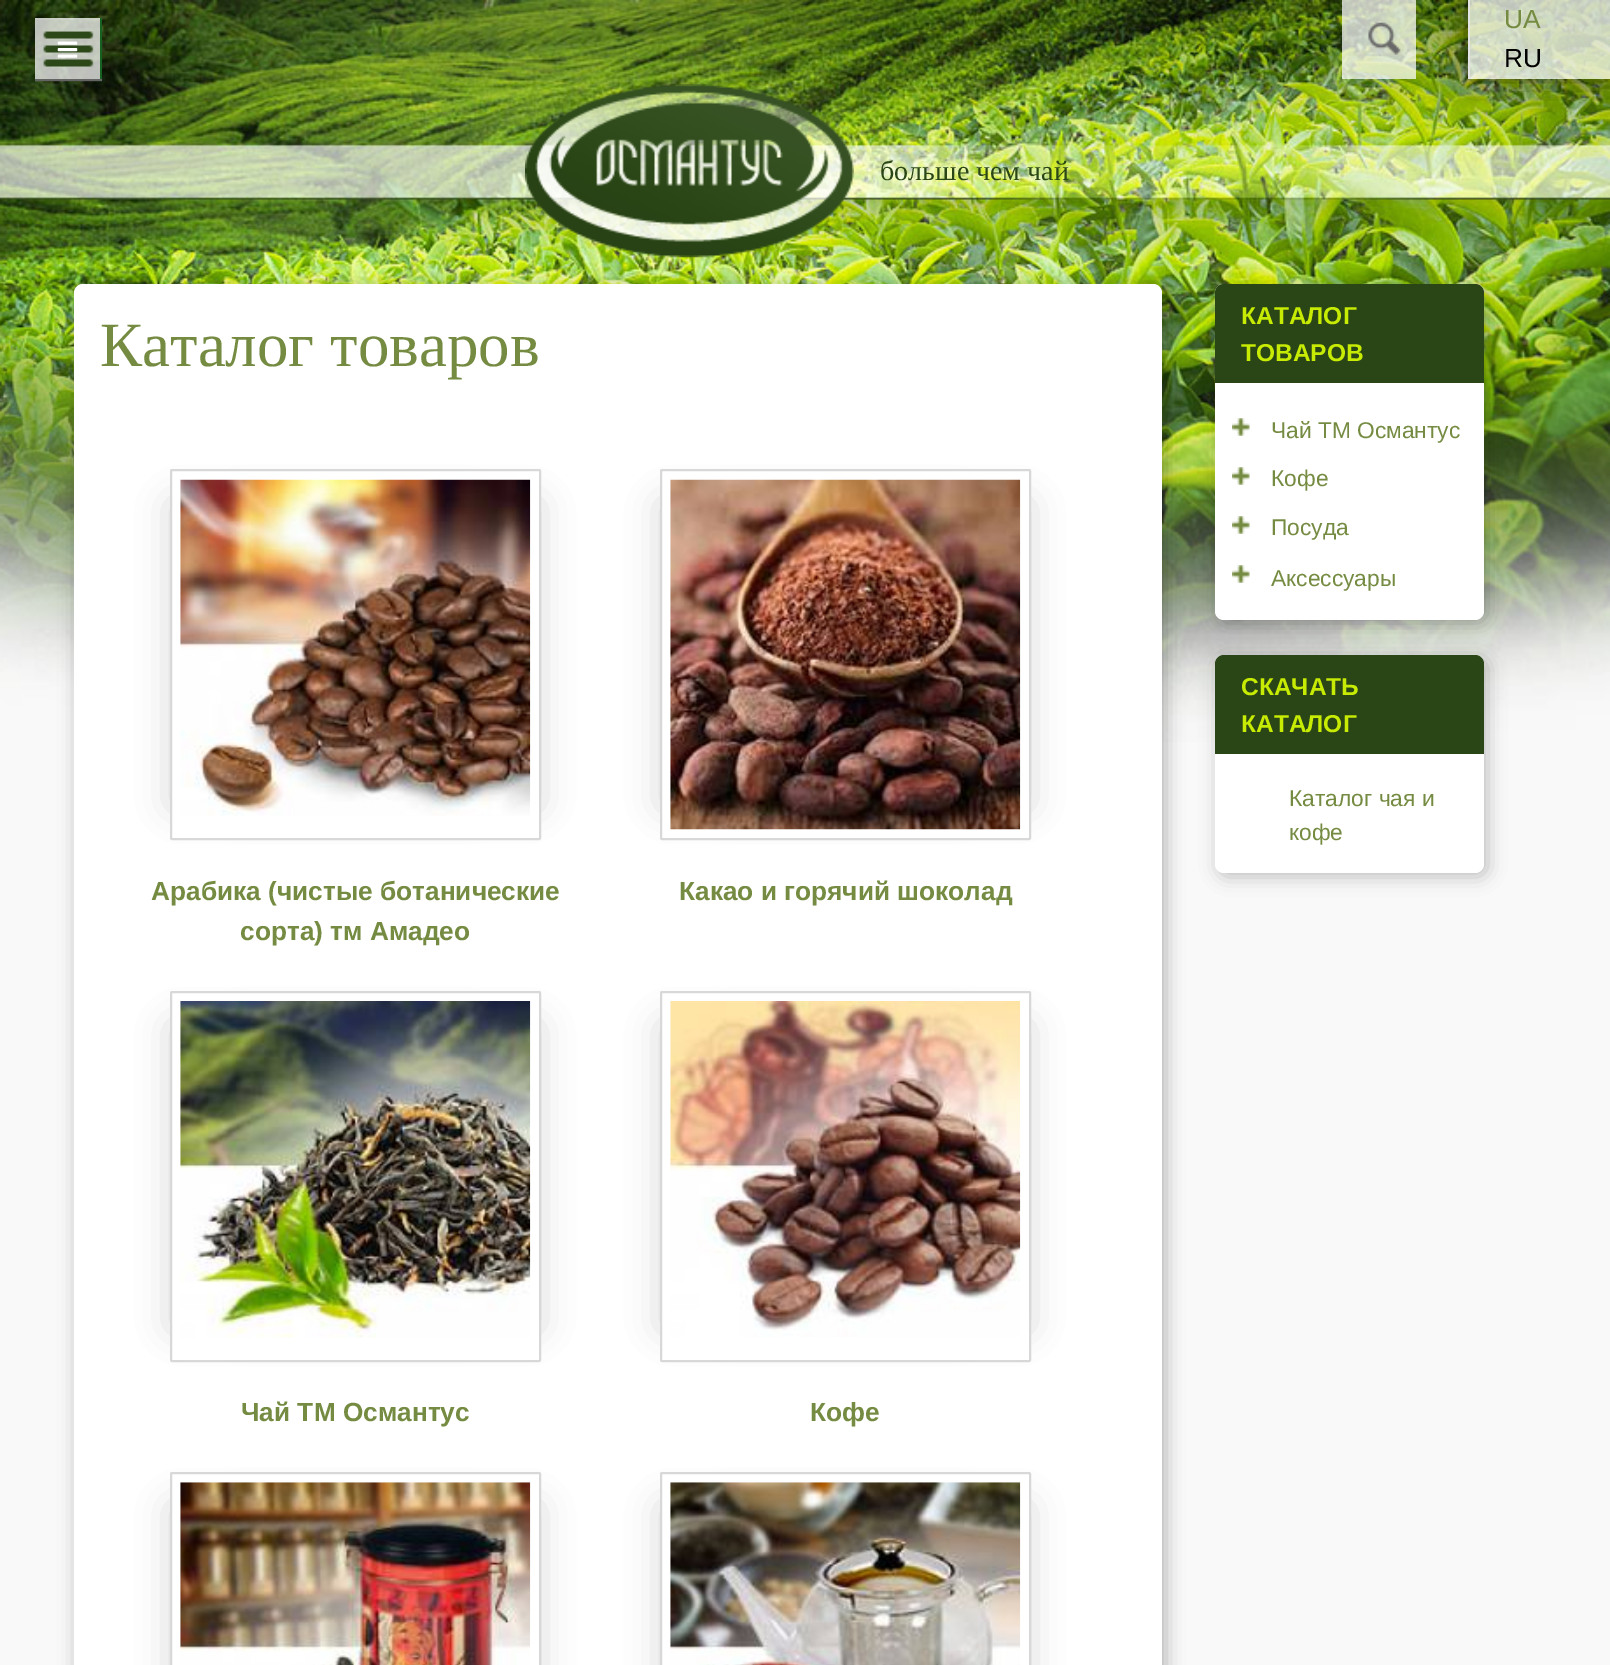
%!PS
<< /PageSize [1610 1665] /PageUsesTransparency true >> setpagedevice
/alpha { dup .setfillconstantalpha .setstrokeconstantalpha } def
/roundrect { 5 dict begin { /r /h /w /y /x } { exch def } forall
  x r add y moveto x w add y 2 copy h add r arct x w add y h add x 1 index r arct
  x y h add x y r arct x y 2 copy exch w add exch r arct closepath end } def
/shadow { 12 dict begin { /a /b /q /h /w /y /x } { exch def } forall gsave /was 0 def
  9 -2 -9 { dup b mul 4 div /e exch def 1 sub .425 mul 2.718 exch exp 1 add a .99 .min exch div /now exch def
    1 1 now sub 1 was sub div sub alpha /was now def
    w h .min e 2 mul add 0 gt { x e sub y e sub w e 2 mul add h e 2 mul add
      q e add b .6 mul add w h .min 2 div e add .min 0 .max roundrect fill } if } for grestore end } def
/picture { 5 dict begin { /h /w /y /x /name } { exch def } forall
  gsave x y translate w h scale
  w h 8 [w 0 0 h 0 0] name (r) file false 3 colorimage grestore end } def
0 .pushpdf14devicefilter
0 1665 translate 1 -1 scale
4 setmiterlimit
0.976 setgray
0 0 1610 1665 rectfill
(img1.rgb) 0 0 1610 742 picture
0.07 alpha
1 setgray
newpath 35 80 moveto 35 82 lineto 102 82 lineto 102 19 lineto 102 80 lineto closepath fill
0.73 alpha
35 18 65 61 rectfill
1 alpha
(img2.rgb) 43 31 51 36 picture
0.1 alpha
35 18 65 2 rectfill
1 alpha
0.086 0.384 0.133 setrgbcolor
100 18 2 63 rectfill
0.392 setgray
35 79 67 2 rectfill
(img3.rgb) 57 41 21 17 picture
gsave
newpath 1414 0 moveto 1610 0 lineto 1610 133 lineto 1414 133 lineto closepath 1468 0 moveto 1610 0 lineto 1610 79 lineto 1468 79 lineto closepath eoclip newpath
0 setgray
1468 0 142 79 0 17.5 0.62 shadow
grestore
0.73 alpha
1 setgray
1342 0 74 79 rectfill
1 alpha
(img4.rgb) 1368 22 33 33 picture
0.73 alpha
1470 0 140 79 rectfill
1 alpha
0.894 setgray
1468 0 2 79 rectfill
/LiberationSans-Regular [26.25 0 0 -26.25 0 0] selectfont
0.459 0.545 0.255 setrgbcolor
1504 28 moveto (UA) show
0 setgray
1504 67 moveto (RU) show
(img5.rgb) 525 84 329 174 picture
/LiberationSerif-Regular [28 0 0 -28 0 0] selectfont
0.165 0.275 0.086 setrgbcolor
880 180 moveto (больше чем чай) show
0 setgray
77 287 1089 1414 9 9 0.28 shadow
1 setgray
74 284 1088 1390 9 roundrect fill
/LiberationSerif-Regular [63 0 0 -63 0 0] selectfont
0.459 0.545 0.255 setrgbcolor
100 366 moveto (Каталог товаров) show
0.812 setgray
173 504 301 301 0 17.5 1 shadow
236 504 301 301 0 17.5 1 shadow
1 setgray
171 470 369 369 1 roundrect gsave fill grestore
0.847 setgray
2 setlinewidth
stroke
(img6.rgb) 180 479 351 337 picture
/LiberationSans-Bold [26.25 0 0 -26.25 0 0] selectfont
0.459 0.545 0.255 setrgbcolor
151 900 moveto (Арабика \(чистые ботанические) show
240 940 moveto (сорта\) тм Амадео) show
0.812 setgray
663 504 301 301 0 17.5 1 shadow
726 504 301 301 0 17.5 1 shadow
1 setgray
661 470 369 369 1 roundrect gsave fill grestore
0.847 setgray
stroke
(img7.rgb) 670 479 351 351 picture
0.459 0.545 0.255 setrgbcolor
679 900 moveto (Какао и горячий шоколад) show
0.812 setgray
173 1026 301 301 0 17.5 1 shadow
236 1026 301 301 0 17.5 1 shadow
1 setgray
171 992 369 369 1 roundrect gsave fill grestore
0.847 setgray
stroke
(img8.rgb) 180 1001 351 337 picture
0.459 0.545 0.255 setrgbcolor
241 1421 moveto (Чай ТМ Османтус) show
0.812 setgray
663 1026 301 301 0 17.5 1 shadow
726 1026 301 301 0 17.5 1 shadow
1 setgray
661 992 369 369 1 roundrect gsave fill grestore
0.847 setgray
stroke
(img9.rgb) 670 1001 351 336 picture
0.459 0.545 0.255 setrgbcolor
810 1421 moveto (Кофе) show
0.812 setgray
173 1507 301 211 0 17.5 1 shadow
236 1507 301 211 0 17.5 1 shadow
1 setgray
171 1473 369 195 1 roundrect gsave fill grestore
0.847 setgray
stroke
(img10.rgb) 180 1482 351 183 picture
0.812 setgray
663 1507 301 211 0 17.5 1 shadow
726 1507 301 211 0 17.5 1 shadow
1 setgray
661 1473 369 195 1 roundrect gsave fill grestore
0.847 setgray
stroke
(img11.rgb) 670 1482 351 183 picture
0 setgray
1218 287 270 336 9 9 0.23 shadow
1 setgray
1215 284 269 336 9 roundrect fill
0.165 0.275 0.086 setrgbcolor
newpath 1224 284 moveto 1475 284 lineto 1480 284 1484 288 1484 293 curveto 1484 383 lineto 1215 383 lineto 1215 293 lineto 1215 288 1219 284 1224 284 curveto closepath fill
/LiberationSans-Bold [24.5 0 0 -24.5 0 0] selectfont
0.78 0.922 0.008 setrgbcolor
1241 324 moveto (КАТАЛОГ) show
1241 361 moveto (ТОВАРОВ) show
(img12.rgb) 1232 418 18 18 picture
/LiberationSans-Regular [22.75 0 0 -22.75 0 0] selectfont
0.459 0.545 0.255 setrgbcolor
1271 438 moveto (Чай ТМ Османтус) show
(img12.rgb) 1232 467 18 18 picture
1271 486 moveto (Кофе) show
(img12.rgb) 1232 516 18 18 picture
1271 535 moveto (Посуда) show
(img12.rgb) 1232 565 18 18 picture
1271 586 moveto (Аксессуары) show
0 setgray
1218 658 270 219 9 9 0.23 shadow
1 setgray
1215 655 269 218 9 roundrect fill
0.165 0.275 0.086 setrgbcolor
newpath 1224 655 moveto 1475 655 lineto 1480 655 1484 659 1484 664 curveto 1484 754 lineto 1215 754 lineto 1215 664 lineto 1215 659 1219 655 1224 655 curveto closepath fill
/LiberationSans-Bold [24.5 0 0 -24.5 0 0] selectfont
0.78 0.922 0.008 setrgbcolor
1241 695 moveto (СКАЧАТЬ) show
1241 732 moveto (КАТАЛОГ) show
/LiberationSans-Regular [22.75 0 0 -22.75 0 0] selectfont
0.459 0.545 0.255 setrgbcolor
1289 806 moveto (Каталог чая и) show
1289 840 moveto (кофе) show
.poppdf14devicefilter showpage
